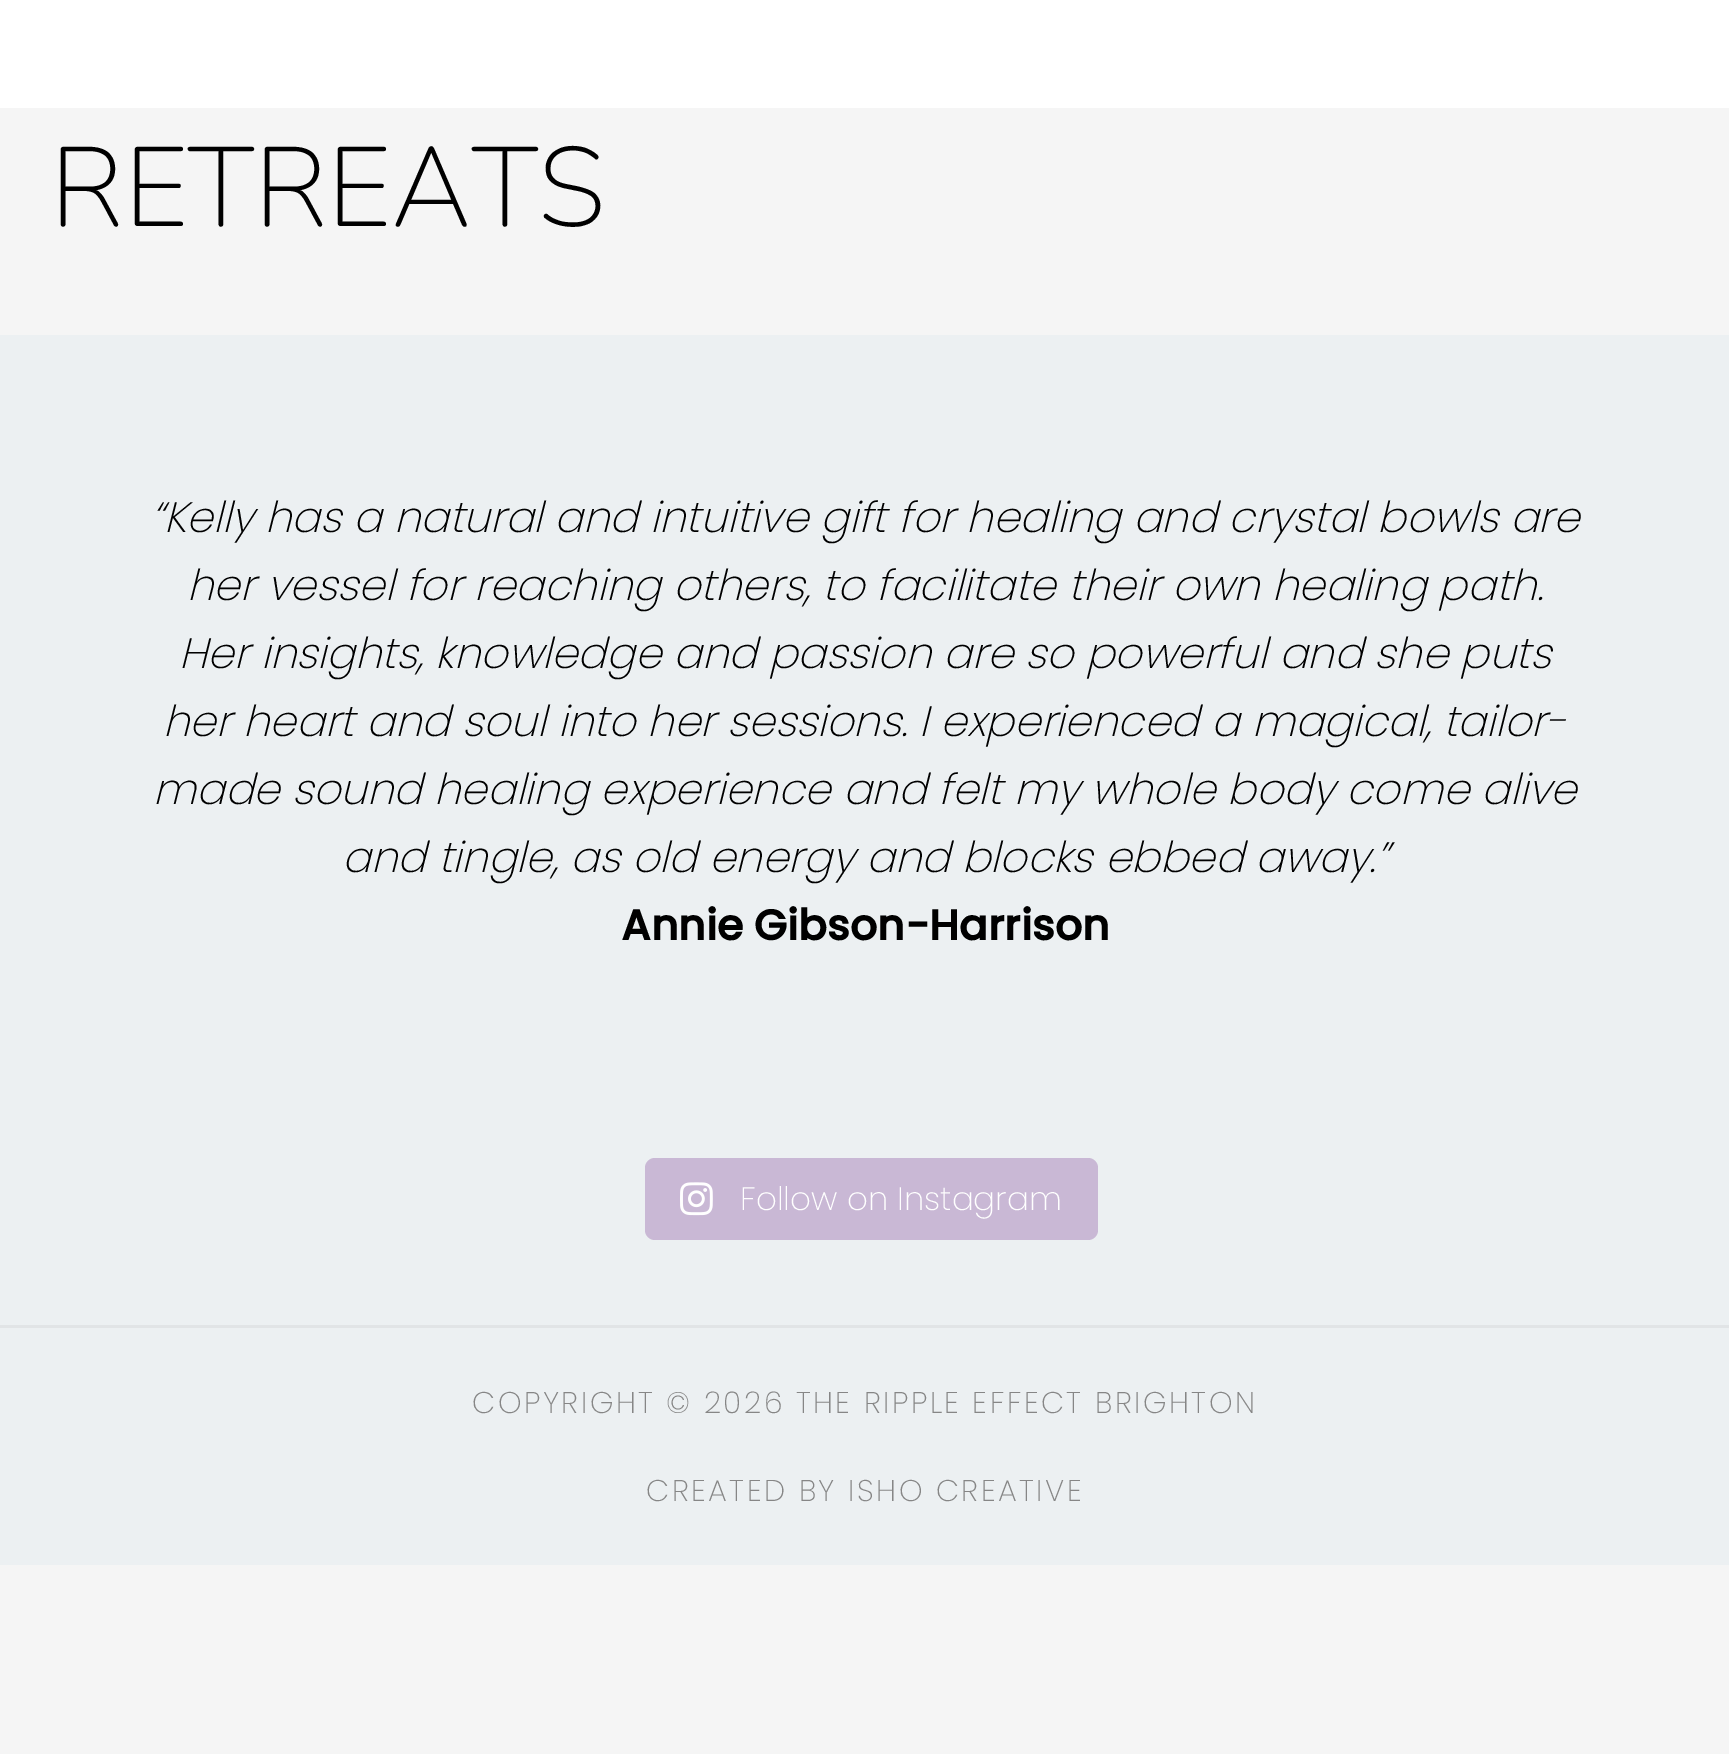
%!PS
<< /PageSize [1729 1754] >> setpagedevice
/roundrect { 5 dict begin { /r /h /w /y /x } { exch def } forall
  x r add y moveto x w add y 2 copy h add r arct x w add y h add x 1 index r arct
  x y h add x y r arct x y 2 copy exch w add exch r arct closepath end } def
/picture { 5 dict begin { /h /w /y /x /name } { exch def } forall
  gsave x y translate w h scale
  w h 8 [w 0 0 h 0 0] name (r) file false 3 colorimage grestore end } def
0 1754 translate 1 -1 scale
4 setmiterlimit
0.961 setgray
0 0 1729 1754 rectfill
1 setgray
0 0 1729 108 rectfill
/Nunito-ExtraLight [112.5 0 0 -112.5 0 0] selectfont
0 setgray
50 226 moveto (RETREATS) show
0.925 0.941 0.949 setrgbcolor
0 335 1729 990 rectfill
/Poppins-ExtraLightItalic [42.5 0 0 -42.5 0 0] selectfont
0 setgray
151 532 moveto (“Kelly has a natural and intuitive gift for healing and crystal bowls are) show
187 600 moveto (her vessel for reaching others, to facilitate their own healing path.) show
179 668 moveto (Her insights, knowledge and passion are so powerful and she puts) show
163 736 moveto (her heart and soul into her sessions. I experienced a magical, tailor-) show
153 804 moveto (made sound healing experience and felt my whole body come alive) show
342 872 moveto (and tingle, as old energy and blocks ebbed away.”) show
/Poppins-Bold [42.5 0 0 -42.5 0 0] selectfont
621 940 moveto (Annie Gibson-Harrison) show
0.788 0.722 0.835 setrgbcolor
645 1158 453 82 10 roundrect fill
(img1.rgb) 680 1182 33 34 picture
/Poppins-ExtraLight [32.5 0 0 -32.5 0 0] selectfont
1 setgray
740 1210 moveto (Follow on Instagram) show
0.925 0.941 0.949 setrgbcolor
0 1328 1729 237 rectfill
0.882 0.894 0.902 setrgbcolor
0 1325 1729 3 rectfill
/Poppins-ExtraLight [30 0 0 -30 0 0] selectfont
0.525 setgray
472 1413 moveto 2.5 0 (COPYRIGHT © 2026 THE RIPPLE EFFECT BRIGHTON) ashow
646 1501 moveto 2.5 0 (CREATED BY ISHO CREATIVE) ashow
showpage
